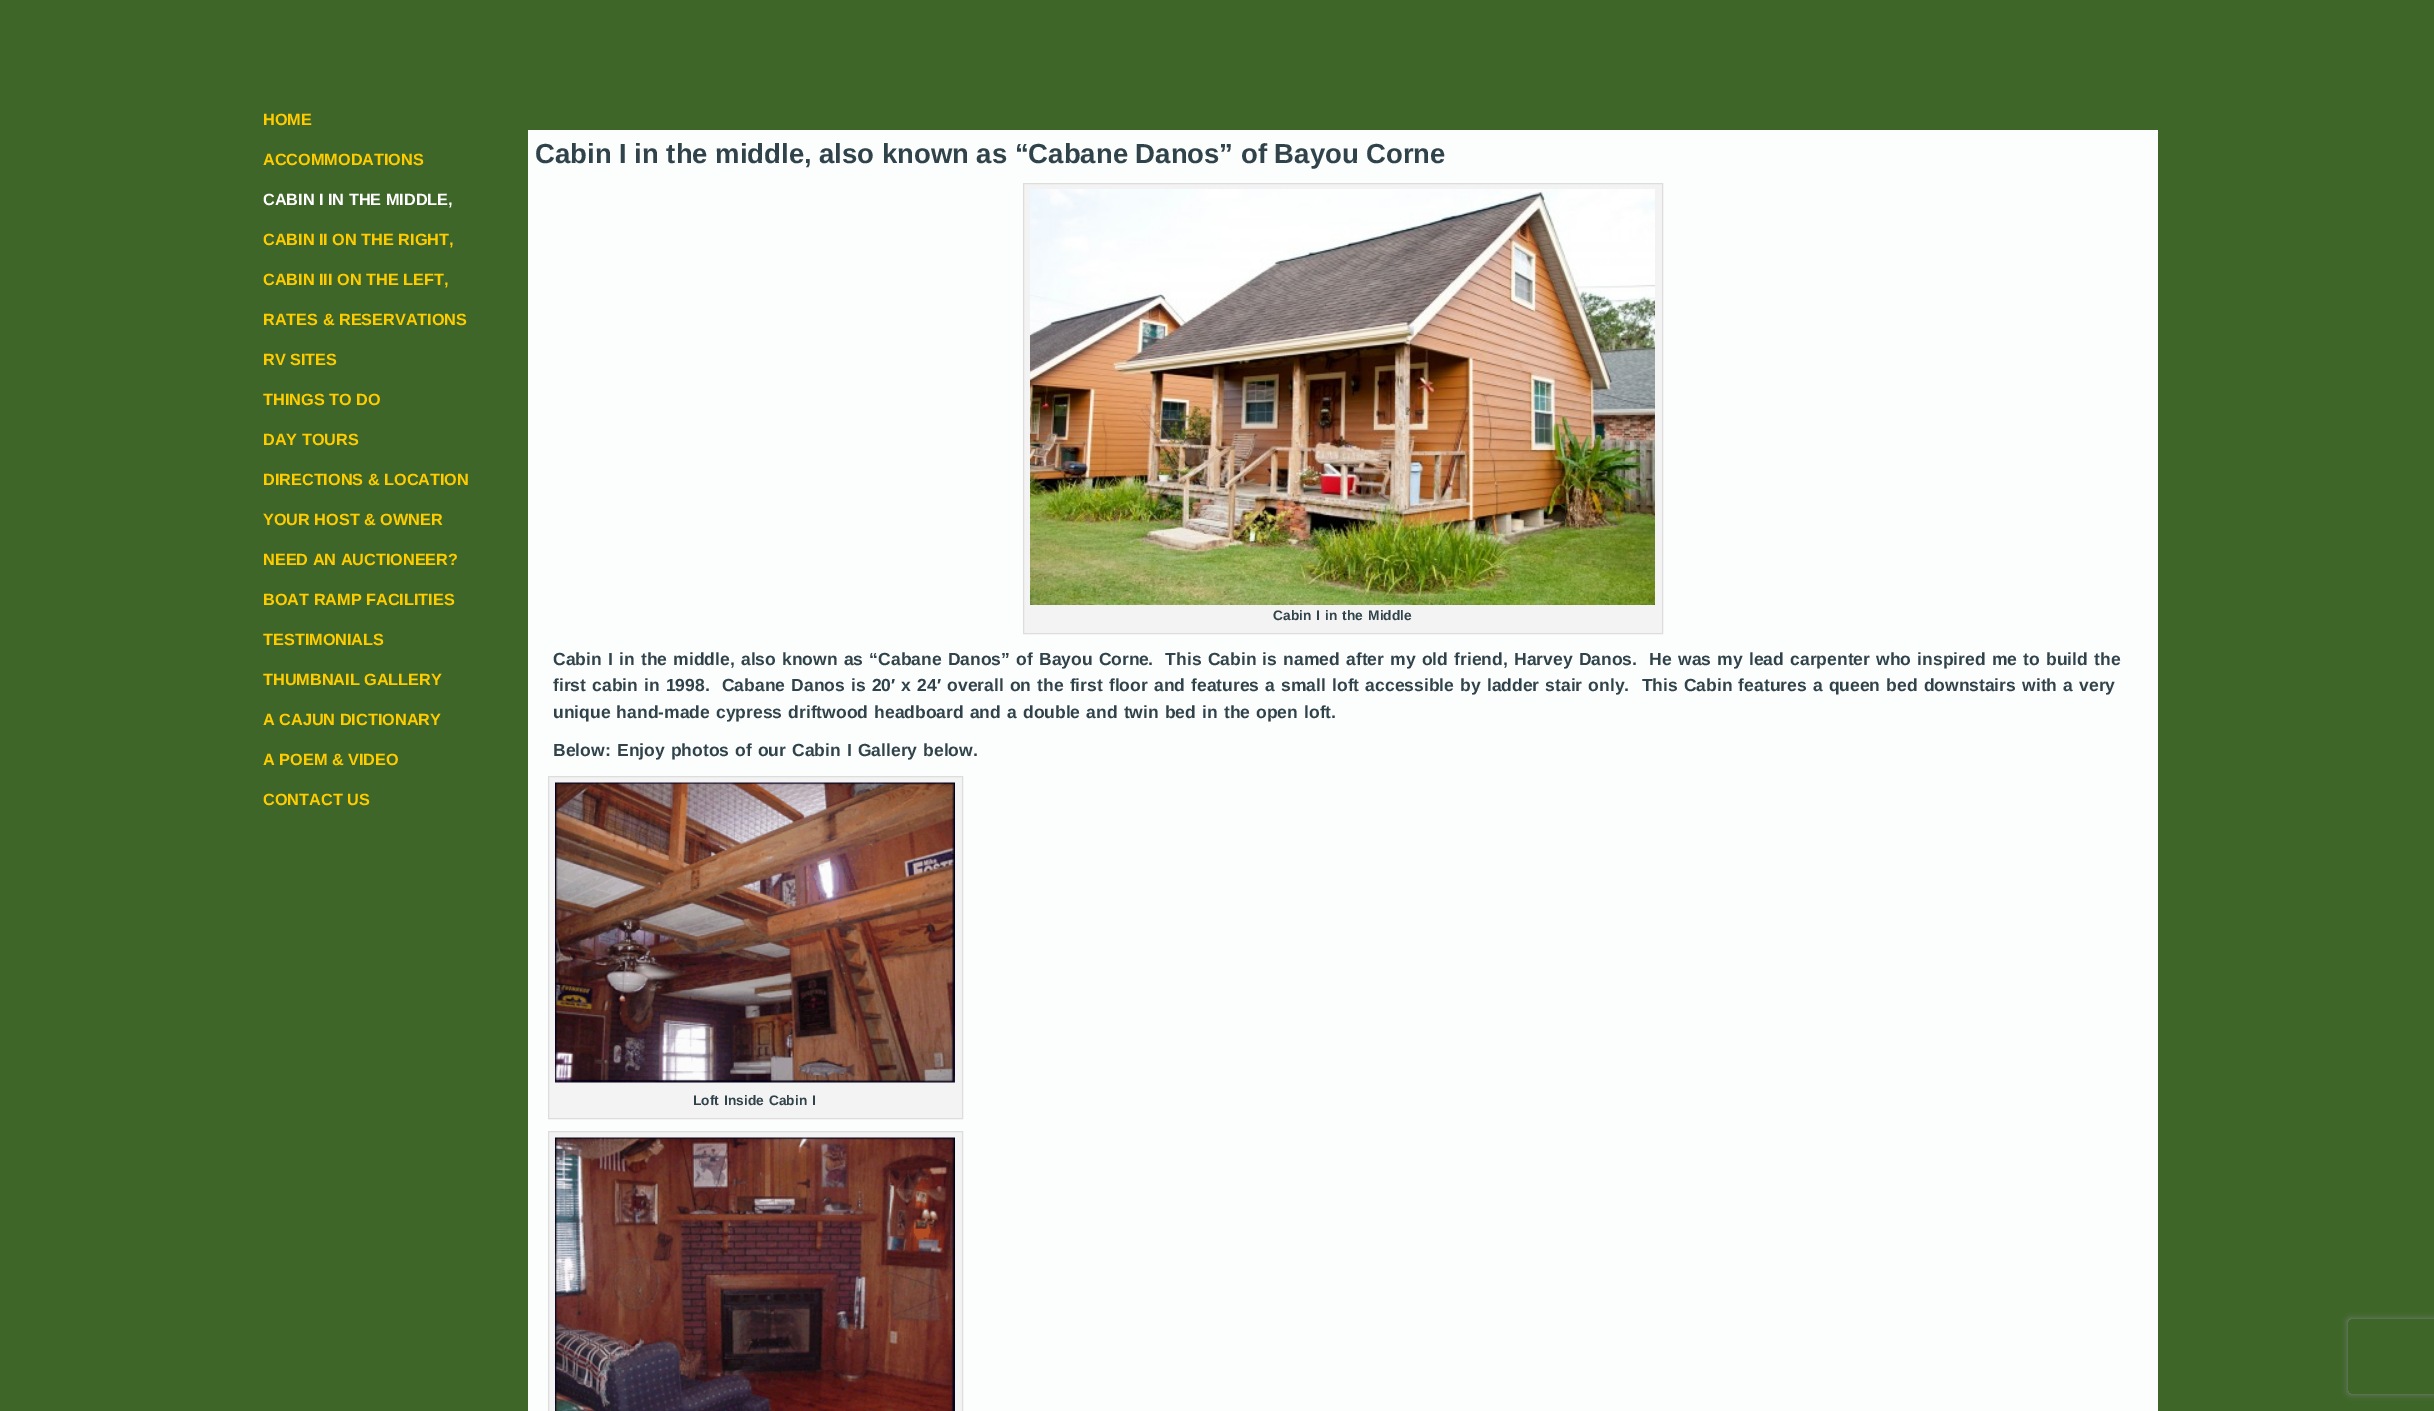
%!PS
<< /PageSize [2434 1411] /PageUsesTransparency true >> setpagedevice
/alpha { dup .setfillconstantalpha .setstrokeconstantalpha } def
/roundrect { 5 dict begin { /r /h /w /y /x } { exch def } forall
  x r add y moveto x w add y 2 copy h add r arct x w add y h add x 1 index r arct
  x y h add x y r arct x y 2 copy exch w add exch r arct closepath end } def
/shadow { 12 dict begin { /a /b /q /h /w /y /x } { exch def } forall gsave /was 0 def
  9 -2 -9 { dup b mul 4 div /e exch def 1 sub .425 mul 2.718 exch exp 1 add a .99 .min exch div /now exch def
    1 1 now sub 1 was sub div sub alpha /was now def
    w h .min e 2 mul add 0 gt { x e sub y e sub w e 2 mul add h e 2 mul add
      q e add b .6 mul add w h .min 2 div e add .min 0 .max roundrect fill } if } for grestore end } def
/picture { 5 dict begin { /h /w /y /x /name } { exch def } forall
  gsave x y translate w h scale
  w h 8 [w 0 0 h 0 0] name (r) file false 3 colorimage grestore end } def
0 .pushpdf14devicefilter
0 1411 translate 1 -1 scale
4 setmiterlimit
0.247 0.4 0.161 setrgbcolor
0 0 2434 1411 rectfill
/LiberationSans-Bold [16.25 0 0 -16.25 0 0] selectfont
1 0.8 0 setrgbcolor
263 125 moveto (HOME) show
263 165 moveto (ACCOMMODATIONS) show
1 setgray
263 205 moveto (CABIN I IN THE MIDDLE,) show
1 0.8 0 setrgbcolor
263 245 moveto (CABIN II ON THE RIGHT,) show
263 285 moveto (CABIN III ON THE LEFT,) show
263 325 moveto (RATES & RESERVATIONS) show
263 365 moveto (RV SITES) show
263 405 moveto (THINGS TO DO) show
263 445 moveto (DAY TOURS) show
263 485 moveto (DIRECTIONS & LOCATION) show
263 525 moveto (YOUR HOST & OWNER) show
263 565 moveto (NEED AN AUCTIONEER?) show
263 605 moveto (BOAT RAMP FACILITIES) show
263 645 moveto (TESTIMONIALS) show
263 685 moveto (THUMBNAIL GALLERY) show
263 725 moveto (A CAJUN DICTIONARY) show
263 765 moveto (A POEM & VIDEO) show
263 805 moveto (CONTACT US) show
0.988 0.992 0.992 setrgbcolor
528 130 1630 1281 rectfill
/LiberationSans-Bold [27.5 0 0 -27.5 0 0] selectfont
0.188 0.259 0.29 setrgbcolor
535 163 moveto (Cabin I in the middle, also known as “Cabane Danos” of Bayou Corne) show
0.953 setgray
newpath 1023.5 183.5 moveto 1662.5 183.5 lineto 1662.5 633.5 lineto 1023.5 633.5 lineto closepath gsave fill grestore
0.867 setgray
stroke
(img1.rgb) 1030 189 625 416 picture
/LiberationSans-Bold [13.75 0 0 -13.75 0 0] selectfont
0.188 0.259 0.29 setrgbcolor
1273 620 moveto 1.25 0 32 (Cabin I in the Middle) widthshow
/LiberationSans-Bold [17.5 0 0 -17.5 0 0] selectfont
553 665 moveto 1.4 0 32 (Cabin I in the middle, also known as “Cabane Danos” of Bayou Corne) widthshow
1148 665 moveto 1.4 0 32 (.  This Cabin is named after my old friend, Harvey Danos.  He was my lead carpenter who inspired me to build the) widthshow
553 691 moveto 1.3 0 32 (first cabin in 1998.  Cabane Danos is 20′ x 24′ overall on the first floor and features a small loft accessible by ladder stair only.  This Cabin features a queen bed downstairs with a very) widthshow
553 718 moveto 1.3 0 32 (unique hand-made cypress driftwood headboard and a double and twin bed in the open loft.) widthshow
553 756 moveto (Below:) show
617 756 moveto 1.25 0 32 (Enjoy photos of our Cabin I Gallery below.) widthshow
0.953 setgray
newpath 548.5 776.5 moveto 962.5 776.5 lineto 962.5 1118.5 lineto 548.5 1118.5 lineto closepath gsave fill grestore
0.867 setgray
stroke
(img2.rgb) 555 782 400 301 picture
/LiberationSans-Bold [13.75 0 0 -13.75 0 0] selectfont
0.188 0.259 0.29 setrgbcolor
693 1105 moveto 1.25 0 32 (Loft Inside Cabin I) widthshow
0.953 setgray
newpath 548.5 1131.5 moveto 962.5 1131.5 lineto 962.5 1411.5 lineto 548.5 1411.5 lineto closepath gsave fill grestore
0.867 setgray
stroke
(img3.rgb) 555 1137 400 274 picture
gsave
newpath 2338 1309 moveto 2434 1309 lineto 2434 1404 lineto 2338 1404 lineto closepath 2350.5 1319 moveto 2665.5 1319 lineto 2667 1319 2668 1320 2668 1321.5 curveto 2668 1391.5 lineto 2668 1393 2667 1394 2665.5 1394 curveto 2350.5 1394 lineto 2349 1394 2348 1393 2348 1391.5 curveto 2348 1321.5 lineto 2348 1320 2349 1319 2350.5 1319 curveto closepath eoclip newpath
0.502 setgray
2348 1319 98 75 2.5 3 1 shadow
grestore
.poppdf14devicefilter showpage
